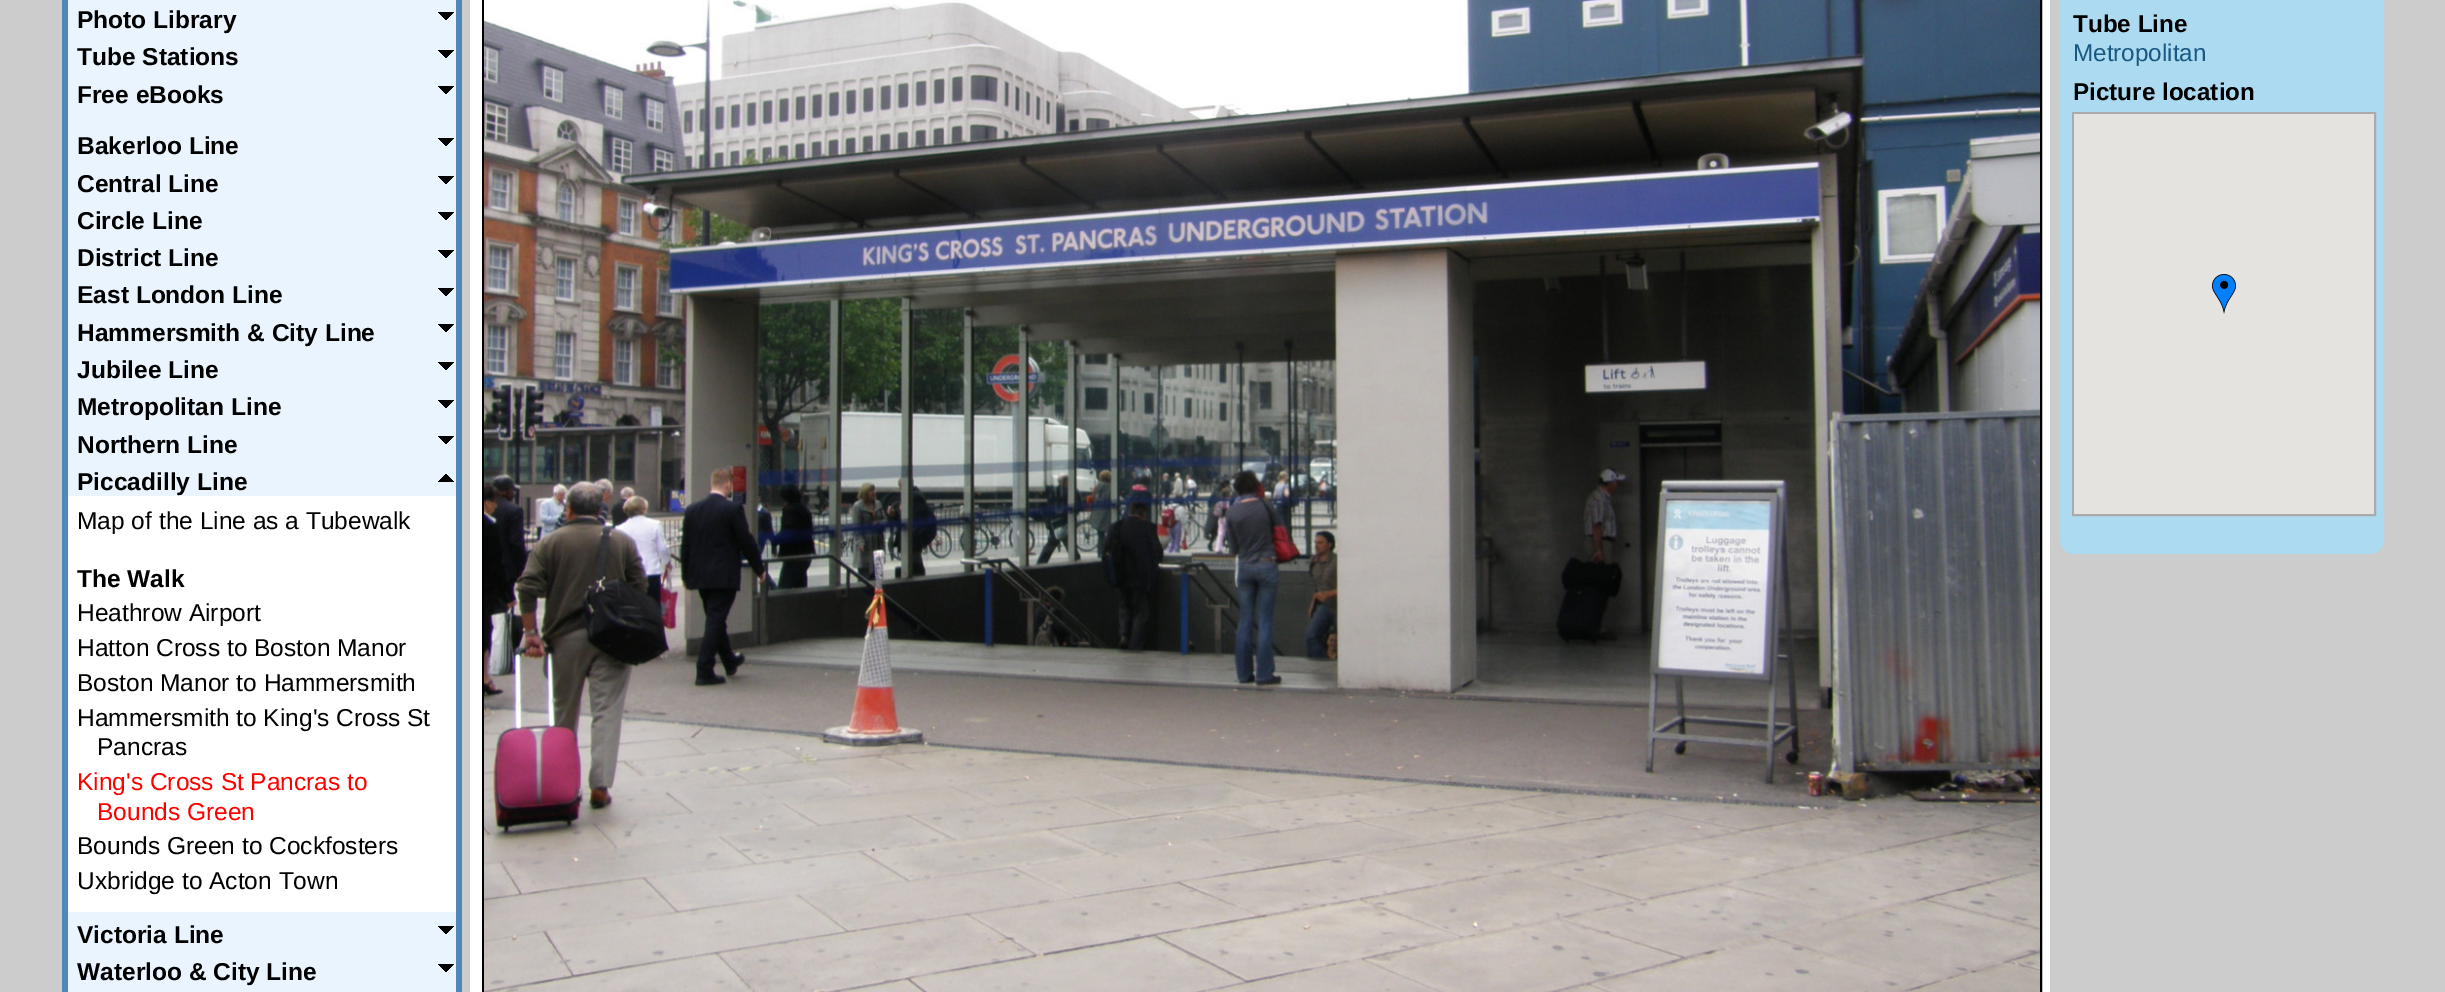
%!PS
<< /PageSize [2445 992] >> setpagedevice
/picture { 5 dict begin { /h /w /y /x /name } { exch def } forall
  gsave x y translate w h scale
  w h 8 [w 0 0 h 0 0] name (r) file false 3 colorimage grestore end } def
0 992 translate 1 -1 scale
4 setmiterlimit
0.8 setgray
0 0 2445 992 rectfill
0.914 0.957 1 setrgbcolor
68 0 388 992 rectfill
0.314 0.529 0.722 setrgbcolor
newpath 62 -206 moveto 462 -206 lineto 462 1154 lineto 462 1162 456 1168 448 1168 curveto 76 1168 lineto 68 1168 62 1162 62 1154 curveto closepath 68 -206 moveto 456 -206 lineto 456 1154 lineto 456 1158 452 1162 448 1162 curveto 76 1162 lineto 72 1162 68 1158 68 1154 curveto closepath eofill
(img1.rgb) 438 12 16 8 picture
/LiberationSans-Bold [24.5 0 0 -24.5 0 0] selectfont
0 setgray
77 28 moveto (Photo Library) show
(img1.rgb) 438 50 16 8 picture
77 65 moveto (Tube Stations) show
(img1.rgb) 438 86 16 8 picture
77 103 moveto (Free eBooks) show
(img1.rgb) 438 138 16 8 picture
77 154 moveto (Bakerloo Line) show
(img1.rgb) 438 176 16 8 picture
77 192 moveto (Central Line) show
(img1.rgb) 438 212 16 8 picture
77 229 moveto (Circle Line) show
(img1.rgb) 438 250 16 8 picture
77 266 moveto (District Line) show
(img1.rgb) 438 288 16 8 picture
77 303 moveto (East London Line) show
(img1.rgb) 438 324 16 8 picture
77 341 moveto (Hammersmith & City Line) show
(img1.rgb) 438 362 16 8 picture
77 378 moveto (Jubilee Line) show
(img1.rgb) 438 400 16 8 picture
77 415 moveto (Metropolitan Line) show
(img1.rgb) 438 436 16 8 picture
77 453 moveto (Northern Line) show
(img2.rgb) 438 474 16 8 picture
77 490 moveto (Piccadilly Line) show
1 setgray
68 496 388 416 rectfill
/LiberationSans-Regular [24.5 0 0 -24.5 0 0] selectfont
0 setgray
77 529 moveto (Map of the Line as a Tubewalk) show
/LiberationSans-Bold [24.5 0 0 -24.5 0 0] selectfont
77 587 moveto (The Walk) show
/LiberationSans-Regular [24.5 0 0 -24.5 0 0] selectfont
77 621 moveto (Heathrow Airport) show
77 656 moveto (Hatton Cross to Boston Manor) show
77 691 moveto (Boston Manor to Hammersmith) show
77 726 moveto (Hammersmith to King's Cross St) show
97 755 moveto (Pancras) show
1 0 0 setrgbcolor
77 790 moveto (King's Cross St Pancras to) show
97 820 moveto (Bounds Green) show
0 setgray
77 854 moveto (Bounds Green to Cockfosters) show
77 889 moveto (Uxbridge to Acton Town) show
(img1.rgb) 438 926 16 8 picture
/LiberationSans-Bold [24.5 0 0 -24.5 0 0] selectfont
77 943 moveto (Victoria Line) show
(img1.rgb) 438 964 16 8 picture
77 980 moveto (Waterloo & City Line) show
1 setgray
470 0 1580 992 rectfill
0 setgray
2 setlinewidth
483 -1 1558 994 rectstroke
(img3.rgb) 484 0 1556 992 picture
0.675 0.855 0.941 setrgbcolor
newpath 2060 -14 moveto 2384 -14 lineto 2384 540 lineto 2384 547.5 2377.5 554 2370 554 curveto 2074 554 lineto 2066.5 554 2060 547.5 2060 540 curveto closepath fill
/LiberationSans-Bold [24.25 0 0 -24.25 0 0] selectfont
0 setgray
2073 32 moveto (Tube Line) show
/LiberationSans-Regular [24.25 0 0 -24.25 0 0] selectfont
0.094 0.345 0.51 setrgbcolor
2073 61 moveto (Metropolitan) show
/LiberationSans-Bold [24.25 0 0 -24.25 0 0] selectfont
0 setgray
2073 100 moveto (Picture location) show
0.667 setgray
2073 113 302 402 rectstroke
0.898 0.89 0.875 setrgbcolor
2074 114 300 400 rectfill
(img4.rgb) 2212 274 24 40 picture
showpage
